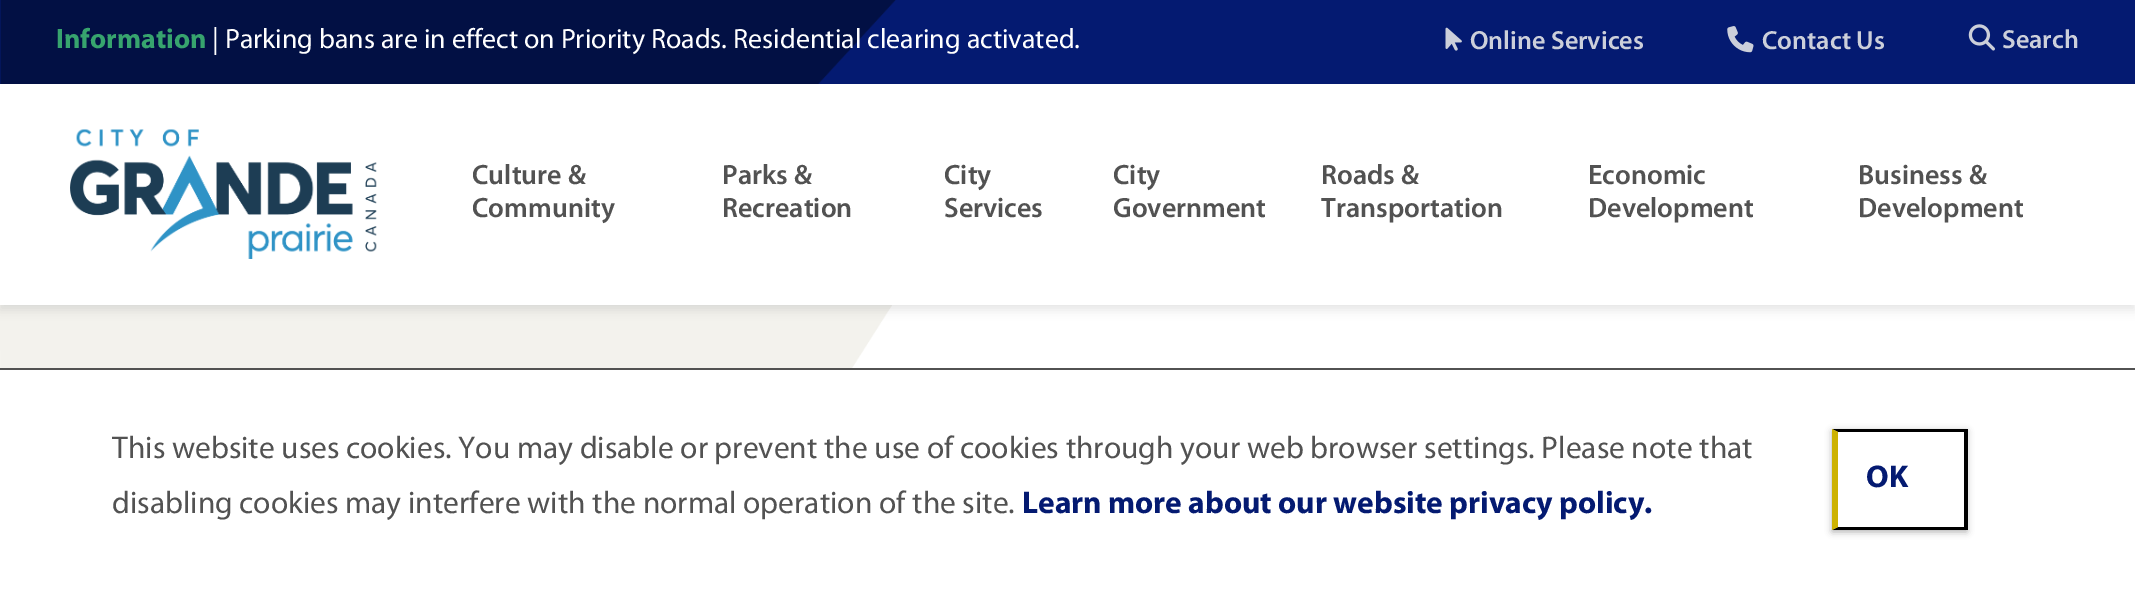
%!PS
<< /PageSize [2135 589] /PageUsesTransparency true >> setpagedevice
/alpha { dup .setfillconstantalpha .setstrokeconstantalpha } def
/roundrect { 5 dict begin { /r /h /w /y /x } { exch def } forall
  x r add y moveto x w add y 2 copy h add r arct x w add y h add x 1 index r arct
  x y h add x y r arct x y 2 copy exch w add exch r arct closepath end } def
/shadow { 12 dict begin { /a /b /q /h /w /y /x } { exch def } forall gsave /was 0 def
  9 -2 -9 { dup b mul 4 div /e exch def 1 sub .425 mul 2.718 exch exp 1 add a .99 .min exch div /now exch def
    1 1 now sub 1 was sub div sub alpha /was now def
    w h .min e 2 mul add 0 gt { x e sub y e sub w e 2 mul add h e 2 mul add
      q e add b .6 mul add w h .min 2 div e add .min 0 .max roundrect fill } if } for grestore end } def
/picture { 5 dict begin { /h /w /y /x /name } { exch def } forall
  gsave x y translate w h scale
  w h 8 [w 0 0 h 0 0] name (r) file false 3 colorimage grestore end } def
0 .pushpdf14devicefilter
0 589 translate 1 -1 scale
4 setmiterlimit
1 setgray
0 0 2135 589 rectfill
0.016 0.102 0.443 setrgbcolor
0 0 2135 84 rectfill
(img6.rgb) 0 305 892 63 picture
0 setgray
0 89 2135 221 0 5 0.1 shadow
(img1.rgb) 0 0 896 84 picture
/Myriad-Bold [28 0 0 -28 0 0] selectfont
0.216 0.643 0.431 setrgbcolor
56 48 moveto (Information) show
/Myriad-Regular [28 0 0 -28 0 0] selectfont
1 setgray
212 48 moveto (| Parking bans are in effect on Priority Roads. Residential clearing activated.) show
(img2.rgb) 1445 27 17 24 picture
/Myriad-SemiBold [26.25 0 0 -26.25 0 0] selectfont
0.8 0.812 0.855 setrgbcolor
1470 49 moveto (Online Services) show
(img3.rgb) 1727 26 27 27 picture
1762 49 moveto (Contact Us) show
(img4.rgb) 1968 24 27 27 picture
2002 48 moveto (Search) show
1 setgray
0 84 2135 221 rectfill
(img5.rgb) 70 129 307 130 picture
/Myriad-SemiBold [28 0 0 -28 0 0] selectfont
0.322 setgray
472 184 moveto (Culture &) show
472 217 moveto (Community) show
722 184 moveto (Parks &) show
722 217 moveto (Recreation) show
944 184 moveto (City) show
944 217 moveto (Services) show
1113 184 moveto (City) show
1113 217 moveto (Government) show
1321 184 moveto (Roads &) show
1321 217 moveto (Transportation) show
1588 184 moveto (Economic) show
1588 217 moveto (Development) show
1858 184 moveto (Business &) show
1858 217 moveto (Development) show
0 368 2135 2 rectfill
/Myriad-Regular [31.5 0 0 -31.5 0 0] selectfont
112 458 moveto (This website uses cookies. You may disable or prevent the use of cookies through your web browser settings. Please note that) show
112 513 moveto (disabling cookies may interfere with the normal operation of the site.) show
/Myriad-Bold [31.5 0 0 -31.5 0 0] selectfont
0.016 0.102 0.443 setrgbcolor
1022 513 moveto (Learn more about our website privacy policy.) show
0 setgray
1832 431 135 101 0 3.5 0.3 shadow
1 setgray
1832 429 132 101 rectfill
0 setgray
newpath 1832 429 moveto 1967 429 lineto 1964 432 lineto 1838 432 lineto closepath fill
1964 429 4 101 rectfill
newpath 1967 530 moveto 1832 530 lineto 1838 527 lineto 1964 527 lineto closepath fill
0.804 0.698 0.004 setrgbcolor
newpath 1832 530 moveto 1832 429 lineto 1838 432 lineto 1838 527 lineto closepath fill
0.016 0.102 0.443 setrgbcolor
1866 487 moveto (OK) show
.poppdf14devicefilter showpage
